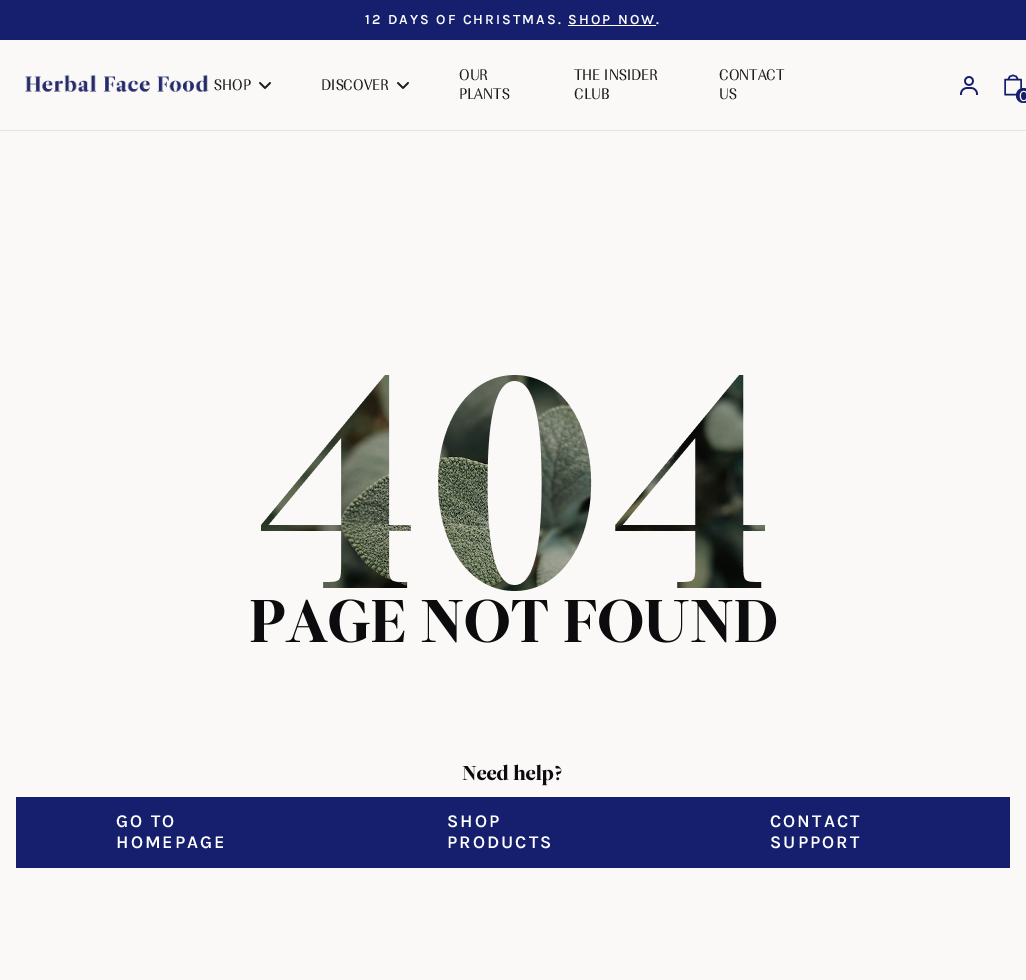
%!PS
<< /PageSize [1026 980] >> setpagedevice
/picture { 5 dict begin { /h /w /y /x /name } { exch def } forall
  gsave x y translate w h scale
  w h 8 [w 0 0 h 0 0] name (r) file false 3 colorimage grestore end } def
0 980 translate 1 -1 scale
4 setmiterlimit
0.98 0.976 0.969 setrgbcolor
0 0 1026 980 rectfill
0.086 0.122 0.431 setrgbcolor
0 0 1026 40 rectfill
/Karla-SemiBold [14 0 0 -14 0 0] selectfont
1 setgray
365 24 moveto 2 0 (12 DAYS OF CHRISTMAS. SHOP NOW.) ashow
568 25 88 1 rectfill
0.894 setgray
0 130 1026 1 rectfill
(img1.rgb) 25 74 184 18 picture
/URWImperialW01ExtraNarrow-Regular [16 0 0 -16 0 0] selectfont
0.106 setgray
214 90 moveto (SHOP) show
(img2.rgb) 259 82 12 7 picture
321 90 moveto (DISCOVER) show
(img2.rgb) 397 82 12 7 picture
459 80 moveto (OUR) show
459 99 moveto (PLANTS) show
574 80 moveto (THE INSIDER) show
574 99 moveto (CLUB) show
719 80 moveto (CONTACT) show
719 99 moveto (US) show
(img3.rgb) 960 76 18 19 picture
0.086 0.122 0.431 setrgbcolor
1.5 setlinewidth
1 setlinecap
1 setlinejoin
newpath 1008.5 79.5 moveto 1008.5 74 1017.5 74 1017.5 79.5 curveto 1005 79.5 moveto 1005 94.5 lineto 1021 94.5 lineto 1021 79.5 lineto closepath stroke
newpath 1023.5 95.5 7.5 0 360 arc closepath fill
/Karla-Regular [16 0 0 -16 0 0] selectfont
0.98 0.976 0.969 setrgbcolor
1019 101 moveto (0) show
(img4.rgb) 261 375 504 216 picture
(img5.rgb) 250 599 527 44 picture
(img6.rgb) 462 764 100 22 picture
0.086 0.122 0.431 setrgbcolor
16 797 994 71 rectfill
/Karla-SemiBold [18 0 0 -18 0 0] selectfont
1 setgray
116 827 moveto 2 0 (GO TO) ashow
116 848 moveto 2 0 (HOMEPAGE) ashow
447 827 moveto 2 0 (SHOP) ashow
447 848 moveto 2 0 (PRODUCTS) ashow
770 827 moveto 2 0 (CONTACT) ashow
770 848 moveto 2 0 (SUPPORT) ashow
showpage
